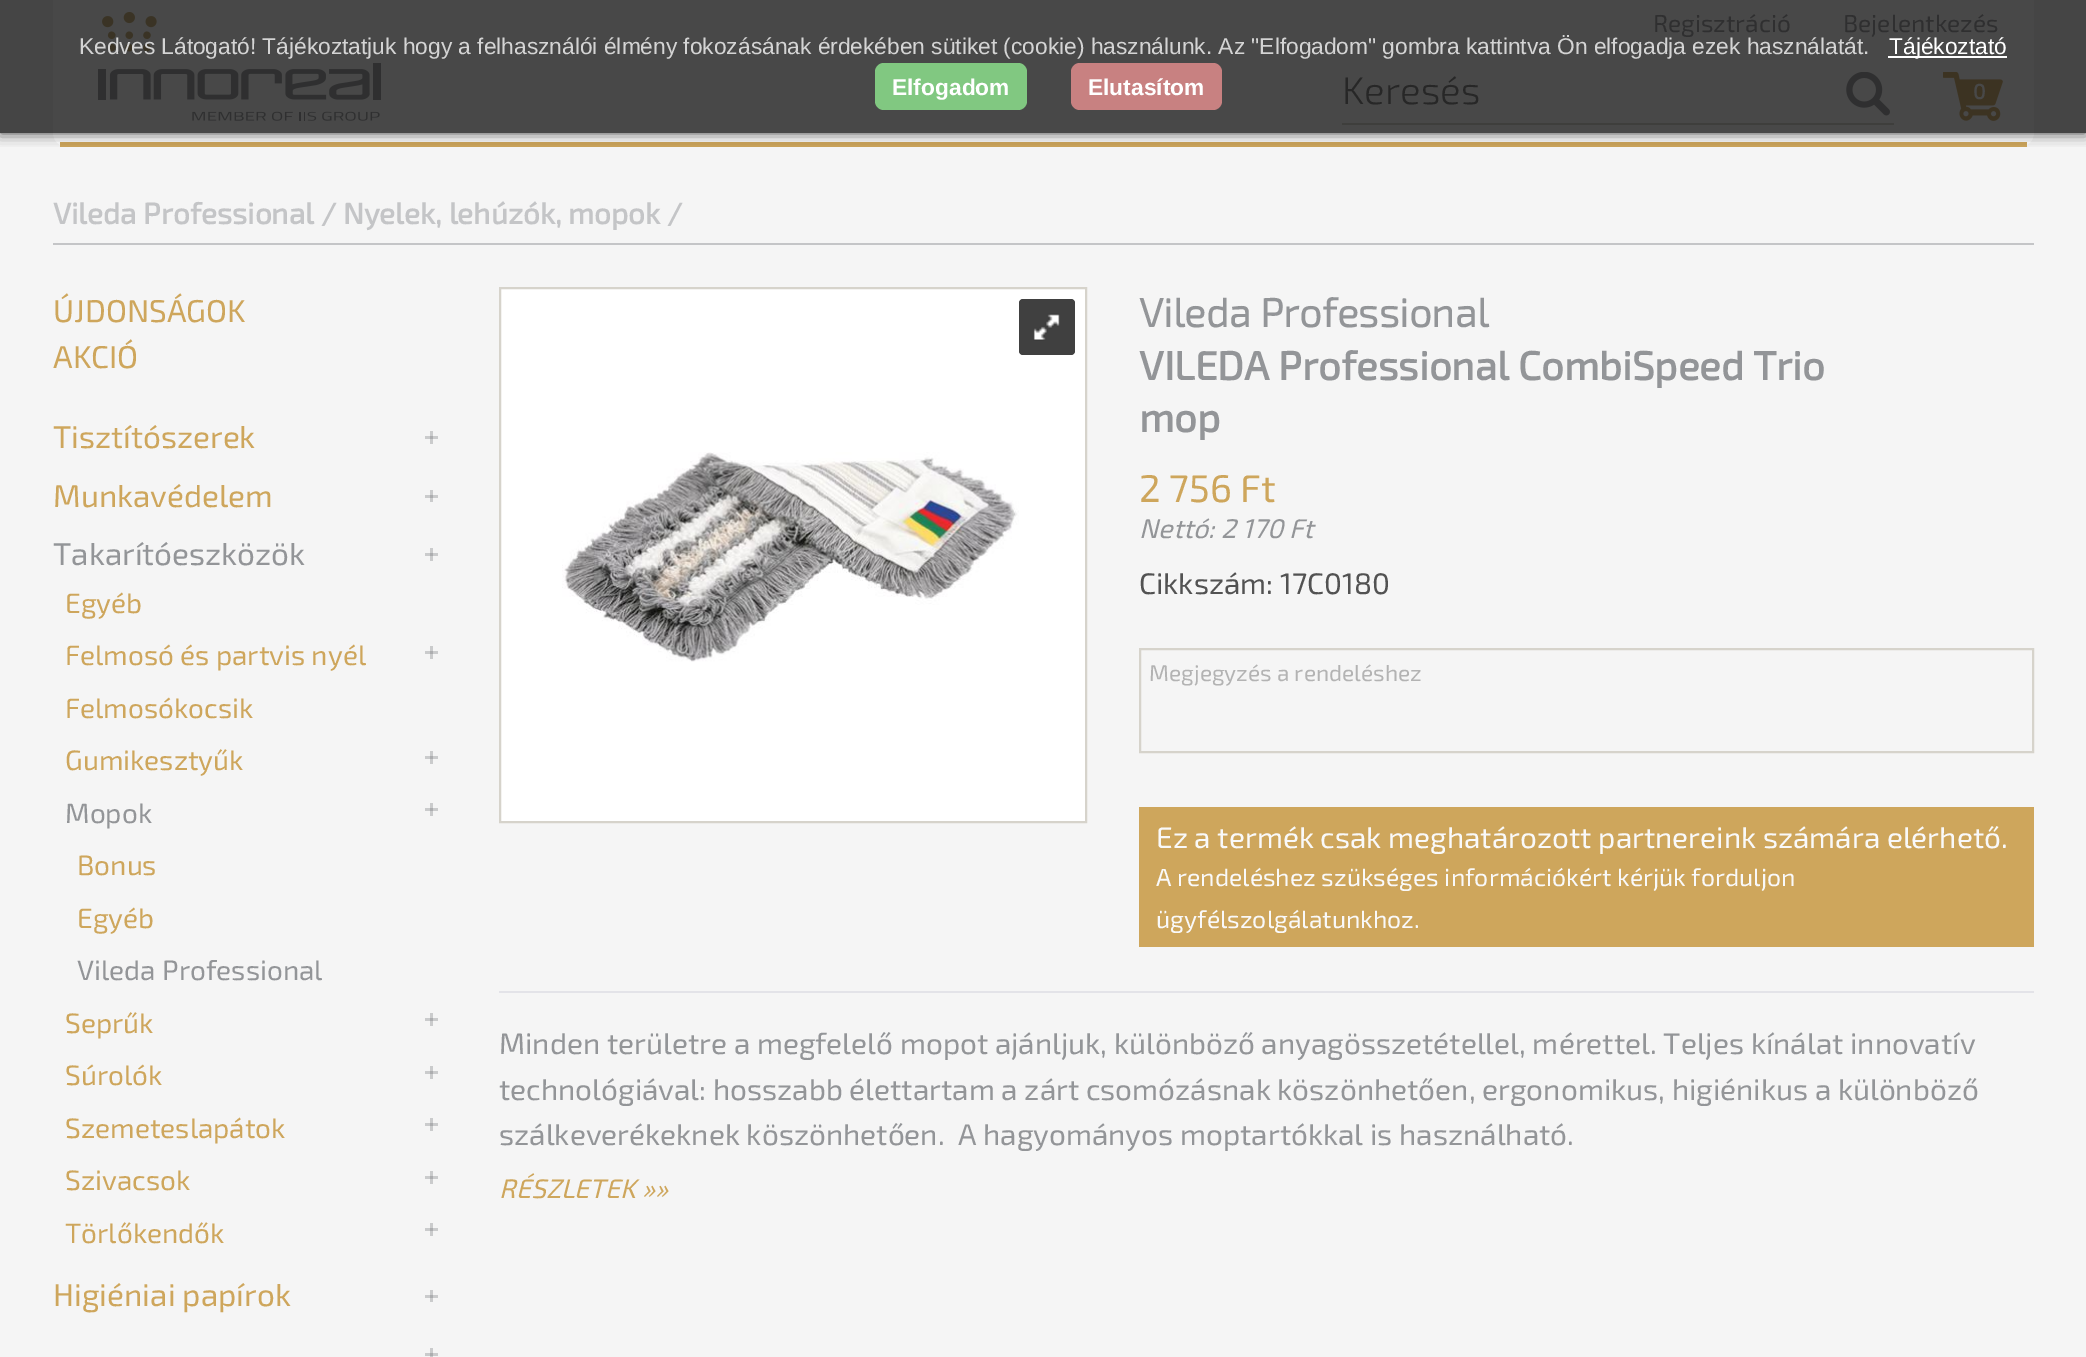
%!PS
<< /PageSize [2086 1357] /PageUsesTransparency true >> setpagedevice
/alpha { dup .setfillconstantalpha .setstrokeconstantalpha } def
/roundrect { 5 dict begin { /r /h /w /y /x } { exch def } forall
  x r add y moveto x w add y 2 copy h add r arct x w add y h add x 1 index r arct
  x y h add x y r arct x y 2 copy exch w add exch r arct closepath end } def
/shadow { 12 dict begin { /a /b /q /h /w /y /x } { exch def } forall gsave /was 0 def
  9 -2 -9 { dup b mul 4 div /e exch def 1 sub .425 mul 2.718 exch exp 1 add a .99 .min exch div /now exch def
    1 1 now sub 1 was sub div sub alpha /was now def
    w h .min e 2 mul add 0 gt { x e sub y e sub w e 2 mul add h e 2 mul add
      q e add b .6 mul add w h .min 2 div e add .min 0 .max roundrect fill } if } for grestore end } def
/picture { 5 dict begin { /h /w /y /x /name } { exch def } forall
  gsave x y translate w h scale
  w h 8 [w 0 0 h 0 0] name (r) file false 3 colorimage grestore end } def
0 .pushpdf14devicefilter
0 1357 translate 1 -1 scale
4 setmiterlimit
0.961 setgray
0 0 2086 1357 rectfill
0.271 setgray
0 0 2086 133 rectfill
0.792 0.796 0.8 setrgbcolor
425 1228 13 3 rectfill
425 1176 13 3 rectfill
425 1123 13 3 rectfill
425 1071 13 3 rectfill
425 1018 13 3 rectfill
425 808 13 3 rectfill
425 756 13 3 rectfill
425 651 13 3 rectfill
425 1353 13 3 rectfill
425 1295 13 3 rectfill
425 553 13 3 rectfill
425 495 13 3 rectfill
425 436 13 3 rectfill
1 setgray
newpath 53 0 moveto 2034 0 lineto 2034 133 lineto 2034 140.5 2027.5 147 2020 147 curveto 67 147 lineto 59.5 147 53 140.5 53 133 curveto closepath fill
0.282 setgray
53 0 1981 133 rectfill
0.808 0.651 0.361 setrgbcolor
60 142 1967 5 rectfill
(img1.rgb) 98 12 283 109 picture
/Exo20-Regular [24.5 0 0 -24.5 0 0] selectfont
0.184 0.184 0.188 setrgbcolor
1653 32 moveto (Regisztráció) show
1843 32 moveto (Bejelentkezés) show
0.243 0.243 0.235 setrgbcolor
1342 123 552 2 rectfill
/Exo20-Light [38.5 0 0 -38.5 0 0] selectfont
0.153 setgray
1342 104 moveto (Keresés) show
(img2.rgb) 1846 72 44 44 picture
(img3.rgb) 1943 72 60 49 picture
/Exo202-Bold [21 0 0 -21 0 0] selectfont
0.282 setgray
1973 99 moveto (0) show
0.769 0.773 0.78 setrgbcolor
53 243 1981 2 rectfill
/Exo202-Bold [29.75 0 0 -29.75 0 0] selectfont
53 224 moveto (Vileda Professional / Nyelek, lehúzók, mopok /) show
1 setgray
newpath 500 288 moveto 1086 288 lineto 1086 822 lineto 500 822 lineto closepath gsave fill grestore
0.839 0.827 0.796 setrgbcolor
2 setlinewidth
stroke
0.251 setgray
1019 299 56 56 4 roundrect fill
(img4.rgb) 1033 313 27 28 picture
(img5.rgb) 562 452 457 210 picture
/Exo20-Bold [40.25 0 0 -40.25 0 0] selectfont
0.576 0.584 0.596 setrgbcolor
1139 327 moveto (Vileda Professional) show
/Exo202-Bold [40.25 0 0 -40.25 0 0] selectfont
1139 380 moveto (VILEDA Professional CombiSpeed Trio) show
1139 432 moveto (mop) show
/Exo20-Regular [38.5 0 0 -38.5 0 0] selectfont
0.808 0.651 0.361 setrgbcolor
1139 502 moveto (2 756 Ft) show
/Exo20-Italic [27 0 0 -27 0 0] selectfont
0.576 0.584 0.596 setrgbcolor
1139 538 moveto (Nettó: 2 170 Ft) show
/Exo20-Regular [29.75 0 0 -29.75 0 0] selectfont
0.322 setgray
1139 594 moveto (Cikkszám: 17C0180) show
0.839 0.827 0.796 setrgbcolor
1140 649 893 103 rectstroke
/Exo20-Regular [22.75 0 0 -22.75 0 0] selectfont
0.702 setgray
1149 681 moveto (Megjegyzés a rendeléshez) show
0.808 0.651 0.361 setrgbcolor
1139 807 895 140 rectfill
/Exo20-Regular [29.75 0 0 -29.75 0 0] selectfont
0.976 setgray
1156 848 moveto (Ez a termék csak meghatározott partnereink számára elérhető.) show
/Exo20-Regular [24.8 0 0 -24.8 0 0] selectfont
1156 886 moveto (A rendeléshez szükséges információkért kérjük forduljon) show
1156 928 moveto (ügyfélszolgálatunkhoz.) show
0.89 0.89 0.91 setrgbcolor
499 991 1535 2 rectfill
/Exo20-Regular [29.75 0 0 -29.75 0 0] selectfont
0.576 0.584 0.596 setrgbcolor
499 1054 moveto (Minden területre a megfelelő mopot ajánljuk, különböző anyagösszetétellel, mérettel. Teljes kínálat innovatív) show
499 1100 moveto (technológiával: hosszabb élettartam a zárt csomózásnak köszönhetően, ergonomikus, higiénikus a különböző) show
499 1145 moveto (szálkeverékeknek köszönhetően.  A hagyományos moptartókkal is használható.) show
/Exo20-Italic [26.75 0 0 -26.75 0 0] selectfont
0.808 0.651 0.361 setrgbcolor
499 1198 moveto (RÉSZLETEK »») show
/Exo20-Regular [31.5 0 0 -31.5 0 0] selectfont
53 322 moveto (ÚJDONSÁGOK) show
53 368 moveto (AKCIÓ) show
0.792 0.796 0.8 setrgbcolor
430 431 3 13 rectfill
0.675 0.678 0.686 setrgbcolor
430 436 3 3 rectfill
0.808 0.651 0.361 setrgbcolor
53 448 moveto (Tisztítószerek) show
0.792 0.796 0.8 setrgbcolor
430 490 3 12 rectfill
0.675 0.678 0.686 setrgbcolor
430 495 3 3 rectfill
0.808 0.651 0.361 setrgbcolor
53 507 moveto (Munkavédelem) show
0.792 0.796 0.8 setrgbcolor
430 548 3 13 rectfill
0.675 0.678 0.686 setrgbcolor
430 553 3 3 rectfill
0.576 0.584 0.596 setrgbcolor
53 565 moveto (Takarítóeszközök) show
/Exo20-Regular [28 0 0 -28 0 0] selectfont
0.808 0.651 0.361 setrgbcolor
65 613 moveto (Egyéb) show
0.792 0.796 0.8 setrgbcolor
430 646 3 13 rectfill
0.675 0.678 0.686 setrgbcolor
430 651 3 3 rectfill
0.808 0.651 0.361 setrgbcolor
65 665 moveto (Felmosó és partvis nyél) show
65 718 moveto (Felmosókocsik) show
0.792 0.796 0.8 setrgbcolor
430 751 3 13 rectfill
0.675 0.678 0.686 setrgbcolor
430 756 3 3 rectfill
0.808 0.651 0.361 setrgbcolor
65 770 moveto (Gumikesztyűk) show
0.792 0.796 0.8 setrgbcolor
430 803 3 13 rectfill
0.675 0.678 0.686 setrgbcolor
430 808 3 3 rectfill
0.576 0.584 0.596 setrgbcolor
65 823 moveto (Mopok) show
0.808 0.651 0.361 setrgbcolor
77 875 moveto (Bonus) show
77 928 moveto (Egyéb) show
0.576 0.584 0.596 setrgbcolor
77 980 moveto (Vileda Professional) show
0.792 0.796 0.8 setrgbcolor
430 1013 3 13 rectfill
0.675 0.678 0.686 setrgbcolor
430 1018 3 3 rectfill
0.808 0.651 0.361 setrgbcolor
65 1033 moveto (Seprűk) show
0.792 0.796 0.8 setrgbcolor
430 1066 3 13 rectfill
0.675 0.678 0.686 setrgbcolor
430 1071 3 3 rectfill
0.808 0.651 0.361 setrgbcolor
65 1085 moveto (Súrolók) show
0.792 0.796 0.8 setrgbcolor
430 1118 3 13 rectfill
0.675 0.678 0.686 setrgbcolor
430 1123 3 3 rectfill
0.808 0.651 0.361 setrgbcolor
65 1138 moveto (Szemeteslapátok) show
0.792 0.796 0.8 setrgbcolor
430 1171 3 13 rectfill
0.675 0.678 0.686 setrgbcolor
430 1176 3 3 rectfill
0.808 0.651 0.361 setrgbcolor
65 1190 moveto (Szivacsok) show
0.792 0.796 0.8 setrgbcolor
430 1223 3 13 rectfill
0.675 0.678 0.686 setrgbcolor
430 1228 3 3 rectfill
0.808 0.651 0.361 setrgbcolor
65 1243 moveto (Törlőkendők) show
0.792 0.796 0.8 setrgbcolor
430 1290 3 12 rectfill
0.675 0.678 0.686 setrgbcolor
430 1295 3 3 rectfill
/Exo20-Regular [31.5 0 0 -31.5 0 0] selectfont
0.808 0.651 0.361 setrgbcolor
53 1306 moveto (Higiéniai papírok) show
0.792 0.796 0.8 setrgbcolor
430 1348 3 9 rectfill
0.675 0.678 0.686 setrgbcolor
430 1353 3 3 rectfill
gsave
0 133 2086 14 rectclip
0 setgray
0 0 2086 133 0 7 0.77 shadow
grestore
/LiberationSans-Regular [22.75 0 0 -22.75 0 0] selectfont
0.831 setgray
79 54 moveto (Kedves Látogató! Tájékoztatjuk hogy a felhasználói élmény fokozásának érdekében sütiket \(cookie\) használunk. Az "Elfogadom" gombra kattintva Ön elfogadja ezek használatát.) show
1 setgray
1888 56 119 2 rectfill
1889 54 moveto (Tájékoztató) show
0.506 0.784 0.506 setrgbcolor
875 63 152 47 9 roundrect fill
/LiberationSans-Bold [22.75 0 0 -22.75 0 0] selectfont
1 setgray
892 95 moveto (Elfogadom) show
0.784 0.506 0.506 setrgbcolor
1071 63 151 47 9 roundrect fill
1 setgray
1088 95 moveto (Elutasítom) show
.poppdf14devicefilter showpage
